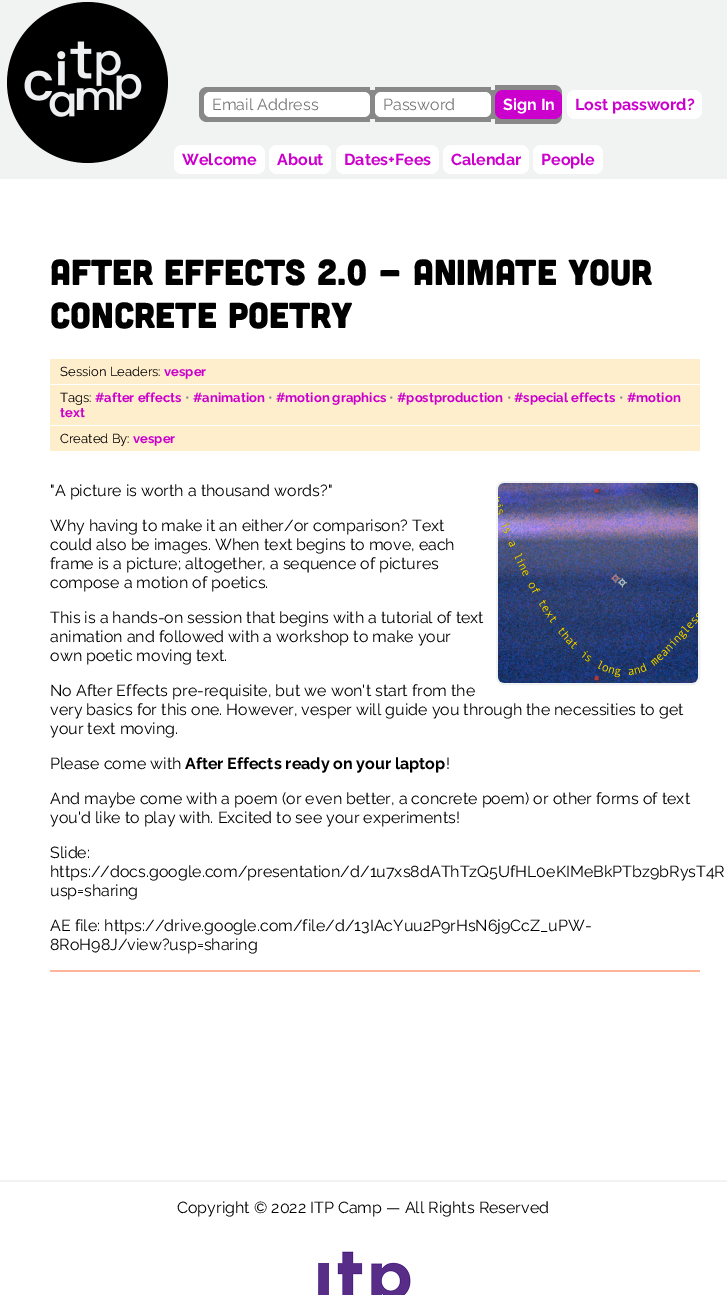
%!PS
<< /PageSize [727 1295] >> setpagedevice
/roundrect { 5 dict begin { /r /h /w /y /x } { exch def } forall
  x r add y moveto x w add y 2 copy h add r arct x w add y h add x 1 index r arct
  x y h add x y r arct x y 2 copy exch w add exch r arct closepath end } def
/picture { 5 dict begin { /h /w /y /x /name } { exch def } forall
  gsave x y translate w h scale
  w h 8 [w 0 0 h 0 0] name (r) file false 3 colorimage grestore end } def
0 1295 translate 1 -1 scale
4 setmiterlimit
1 setgray
0 0 727 1295 rectfill
0.945 0.949 0.949 setrgbcolor
0 0 727 179 rectfill
(img1.rgb) 7 2 161 161 picture
0.533 setgray
newpath 207 87 moveto 370 87 lineto 370 122 lineto 207 122 lineto 202.5 122 199 118.5 199 114 curveto 199 95 lineto 199 90.5 202.5 87 207 87 curveto closepath fill
370 90 5 29 rectfill
375 87 116 35 rectfill
491 90 4 29 rectfill
newpath 495 85 moveto 554 85 lineto 558.5 85 562 88.5 562 93 curveto 562 116 lineto 562 120.5 558.5 124 554 124 curveto 495 124 lineto closepath fill
1 setgray
204 92 166 25 6 roundrect fill
/Raleway-Regular [16 0 0 -16 0 0] selectfont
0.459 setgray
212 110 moveto (Email Address) show
1 setgray
375 92 116 25 6 roundrect fill
0.459 setgray
383 110 moveto (Password) show
0.8 0 0.8 setrgbcolor
495 90 67 29 8 roundrect fill
/Raleway-Bold [16 0 0 -16 0 0] selectfont
1 setgray
503 110 moveto (Sign In) show
567 90 135 29 8 roundrect fill
0.8 0 0.8 setrgbcolor
575 110 moveto (Lost password?) show
1 setgray
174 145 91 29 8 roundrect fill
0.8 0 0.8 setrgbcolor
182 165 moveto (Welcome) show
1 setgray
269 145 62 29 8 roundrect fill
0.8 0 0.8 setrgbcolor
277 165 moveto (About) show
1 setgray
336 145 103 29 8 roundrect fill
0.8 0 0.8 setrgbcolor
344 165 moveto (Dates+Fees) show
1 setgray
443 145 86 29 8 roundrect fill
0.8 0 0.8 setrgbcolor
451 165 moveto (Calendar) show
1 setgray
533 145 70 29 8 roundrect fill
0.8 0 0.8 setrgbcolor
541 165 moveto (People) show
/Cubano-Regular [36 0 0 -36 0 0] selectfont
0 setgray
50 285 moveto (After Effects 2.0 - Animate your) show
50 328 moveto (concrete poetry) show
1 0.933 0.8 setrgbcolor
50 359 650 92 rectfill
/Raleway-Regular [13 0 0 -13 0 0] selectfont
0 setgray
60 376 moveto (Session Leaders:) show
/Raleway-Bold [13 0 0 -13 0 0] selectfont
0.8 0 0.8 setrgbcolor
164 376 moveto (vesper) show
1 setgray
50 384 650 1 rectfill
/Raleway-Regular [13 0 0 -13 0 0] selectfont
0 setgray
60 402 moveto (Tags:) show
/Raleway-Bold [13 0 0 -13 0 0] selectfont
0.8 0 0.8 setrgbcolor
95 402 moveto (#after effects) show
/Raleway-Regular [13 0 0 -13 0 0] selectfont
0.533 setgray
185 402 moveto (•) show
/Raleway-Bold [13 0 0 -13 0 0] selectfont
0.8 0 0.8 setrgbcolor
193 402 moveto (#animation) show
/Raleway-Regular [13 0 0 -13 0 0] selectfont
0.533 setgray
268 402 moveto (•) show
/Raleway-Bold [13 0 0 -13 0 0] selectfont
0.8 0 0.8 setrgbcolor
276 402 moveto (#motion graphics) show
/Raleway-Regular [13 0 0 -13 0 0] selectfont
0.533 setgray
389 402 moveto (•) show
/Raleway-Bold [13 0 0 -13 0 0] selectfont
0.8 0 0.8 setrgbcolor
397 402 moveto (#postproduction) show
/Raleway-Regular [13 0 0 -13 0 0] selectfont
0.533 setgray
507 402 moveto (•) show
/Raleway-Bold [13 0 0 -13 0 0] selectfont
0.8 0 0.8 setrgbcolor
514 402 moveto (#special effects) show
/Raleway-Regular [13 0 0 -13 0 0] selectfont
0.533 setgray
619 402 moveto (•) show
/Raleway-Bold [13 0 0 -13 0 0] selectfont
0.8 0 0.8 setrgbcolor
627 402 moveto (#motion) show
60 417 moveto (text) show
1 setgray
50 425 650 1 rectfill
/Raleway-Regular [13 0 0 -13 0 0] selectfont
0 setgray
60 443 moveto (Created By:) show
/Raleway-Bold [13 0 0 -13 0 0] selectfont
0.8 0 0.8 setrgbcolor
133 443 moveto (vesper) show
0.945 0.949 0.949 setrgbcolor
2 setlinewidth
497 482 202 202 7 roundrect stroke
(img2.rgb) 498 483 200 200 picture
/Raleway-Regular [16 0 0 -16 0 0] selectfont
0 setgray
50 496 moveto ("A picture is worth a thousand words?") show
50 531 moveto (Why having to make it an either/or comparison? Text) show
50 550 moveto (could also be images. When text begins to move, each) show
50 569 moveto (frame is a picture; altogether, a sequence of pictures) show
50 588 moveto (compose a motion of poetics.) show
50 623 moveto (This is a hands-on session that begins with a tutorial of text) show
50 642 moveto (animation and followed with a workshop to make your) show
50 661 moveto (own poetic moving text.) show
50 696 moveto (No After Effects pre-requisite, but we won't start from the) show
50 715 moveto (very basics for this one. However, vesper will guide you through the necessities to get) show
50 734 moveto (your text moving.) show
50 769 moveto (Please come with) show
/Raleway-Bold [16 0 0 -16 0 0] selectfont
185 769 moveto (After Effects ready on your laptop) show
/Raleway-Regular [16 0 0 -16 0 0] selectfont
446 769 moveto (!) show
50 804 moveto (And maybe come with a poem \(or even better, a concrete poem\) or other forms of text) show
50 823 moveto (you'd like to play with. Excited to see your experiments!) show
50 858 moveto (Slide:) show
50 877 moveto (https://docs.google.com/presentation/d/1u7xs8dAThTzQ5UfHL0eKIMeBkPTbz9bRysT4R) show
50 896 moveto (usp=sharing) show
50 931 moveto (AE file: https://drive.google.com/file/d/13IAcYuu2P9rHsN6j9CcZ_uPW-) show
50 950 moveto (8RoH98J/view?usp=sharing) show
1 0.71 0.6 setrgbcolor
50 970 650 2 rectfill
0.945 0.949 0.949 setrgbcolor
0 1180 727 2 rectfill
0 setgray
177 1213 moveto (Copyright © 2022 ITP Camp — All Rights Reserved) show
(img3.rgb) 318 1251 93 44 picture
showpage
